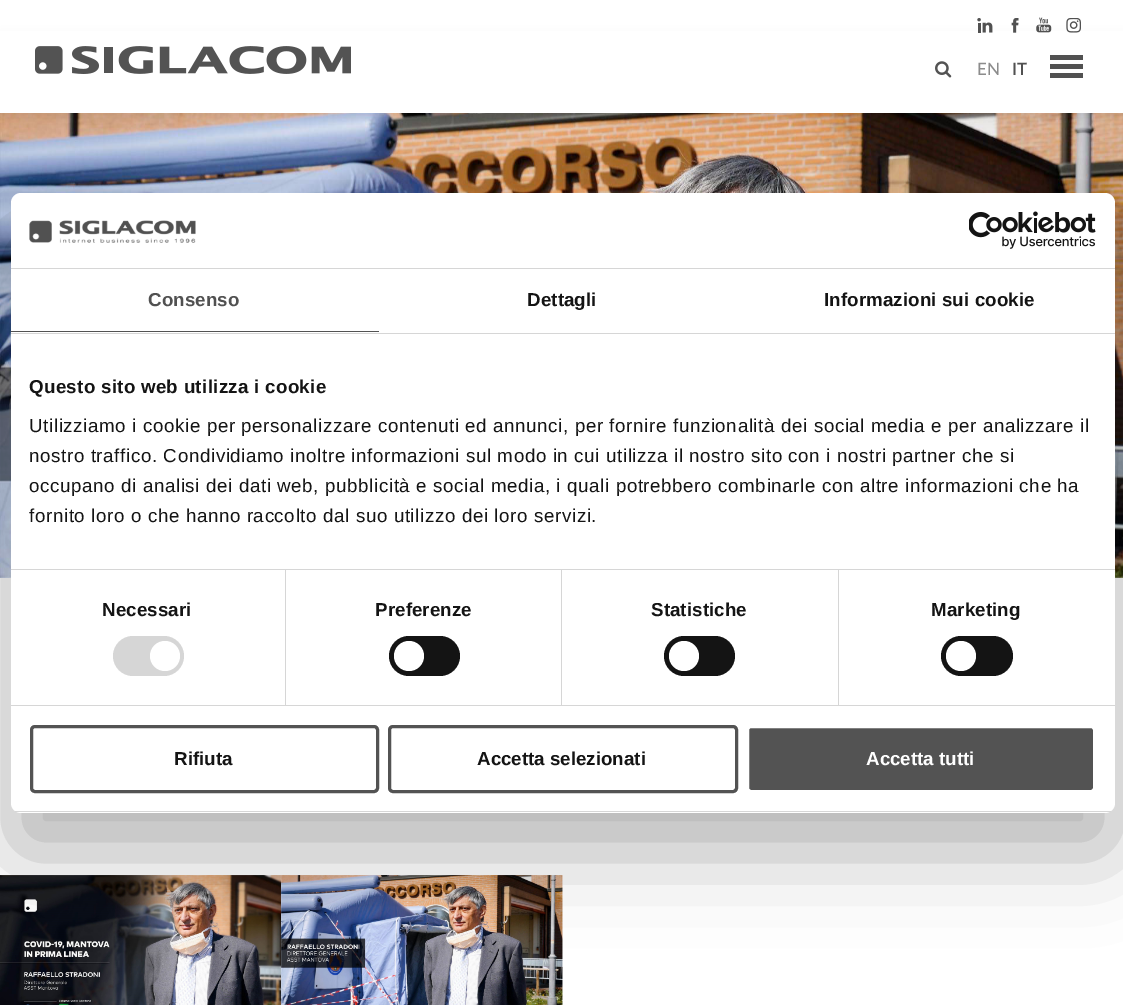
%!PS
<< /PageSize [1123 1005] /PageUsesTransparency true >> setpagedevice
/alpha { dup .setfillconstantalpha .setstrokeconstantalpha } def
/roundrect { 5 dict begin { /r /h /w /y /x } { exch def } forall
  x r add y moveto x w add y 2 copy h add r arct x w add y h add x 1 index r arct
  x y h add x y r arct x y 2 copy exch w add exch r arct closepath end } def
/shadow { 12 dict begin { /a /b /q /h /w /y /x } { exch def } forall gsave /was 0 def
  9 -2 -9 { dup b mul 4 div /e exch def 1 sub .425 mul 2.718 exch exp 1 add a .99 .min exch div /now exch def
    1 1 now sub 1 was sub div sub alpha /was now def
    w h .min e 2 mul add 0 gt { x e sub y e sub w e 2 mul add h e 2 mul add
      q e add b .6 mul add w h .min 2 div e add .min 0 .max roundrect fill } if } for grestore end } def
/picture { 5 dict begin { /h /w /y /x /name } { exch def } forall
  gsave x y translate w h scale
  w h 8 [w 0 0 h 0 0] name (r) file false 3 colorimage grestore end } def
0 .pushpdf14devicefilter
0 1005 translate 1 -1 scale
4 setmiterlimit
1 setgray
0 0 1123 1005 rectfill
(img7.rgb) 0 113 1123 465 picture
0 setgray
0 39 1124 75 0 6 0.1 shadow
1 setgray
0 31 1123 82 rectfill
0.318 setgray
1050 55 33 5 rectfill
1050 64 33 5 rectfill
1050 73 33 5 rectfill
(img1.rgb) 977 18 16 15 picture
(img2.rgb) 1011 18 8 15 picture
(img3.rgb) 1036 17 16 16 picture
(img4.rgb) 1066 18 15 15 picture
(img5.rgb) 35 46 316 28 picture
(img6.rgb) 935 61 17 17 picture
/Lato-Medium [17 0 0 -17 0 0] selectfont
0.549 setgray
977 75 moveto (EN) show
/Lato-SemiBold [17 0 0 -17 0 0] selectfont
0.318 setgray
1012 75 moveto (IT) show
(img8.rgb) 0 875 282 130 picture
(img9.rgb) 281 875 282 130 picture
0 setgray
11 233 1104 620 10 42.5 0.3 shadow
1 setgray
11 193 1104 620 10 roundrect fill
0.839 setgray
11 268 1104 1 rectfill
(img10.rgb) 29 220 167 23 picture
(img11.rgb) 969 211 127 38 picture
11 333 1104 1 rectfill
0.325 setgray
11 331 368 1 rectfill
/LiberationSans-Bold [18.75 0 0 -18.75 0 0] selectfont
0.318 setgray
148 306 moveto 0.1 0 (Consenso) ashow
0.078 setgray
527 306 moveto 0.1 0 (Dettagli) ashow
824 306 moveto 0.1 0 (Informazioni sui cookie) ashow
0.839 setgray
11 569 1104 1 rectfill
0.078 setgray
29 393 moveto 0.3 0 (Questo sito web utilizza i cookie) ashow
/LiberationSans-Regular [18.75 0 0 -18.75 0 0] selectfont
29 432 moveto 0.62 0 (Utilizziamo i cookie per personalizzare contenuti ed annunci, per fornire funzionalità dei social media e per analizzare il) ashow
29 462 moveto 0.62 0 (nostro traffico. Condividiamo inoltre informazioni sul modo in cui utilizza il nostro sito con i nostri partner che si) ashow
29 492 moveto 0.62 0 (occupano di analisi dei dati web, pubblicità e social media, i quali potrebbero combinarle con altre informazioni che ha) ashow
29 522 moveto 0.62 0 (fornito loro o che hanno raccolto dal suo utilizzo dei loro servizi.) ashow
0.839 setgray
11 705 1104 1 rectfill
285 570 1 135 rectfill
/LiberationSans-Bold [18.75 0 0 -18.75 0 0] selectfont
0.078 setgray
102 616 moveto 0.1 0 (Necessari) ashow
0.839 setgray
113 636 71 40 20 roundrect fill
1 setgray
newpath 165 656 15 0 360 arc closepath fill
0.839 setgray
561 570 1 135 rectfill
0.078 setgray
375 616 moveto 0.1 0 (Preferenze) ashow
389 636 71 40 20 roundrect fill
1 setgray
newpath 409 656 15 0 360 arc closepath fill
0.839 setgray
838 570 1 135 rectfill
0.078 setgray
651 616 moveto 0.1 0 (Statistiche) ashow
664 636 71 40 20 roundrect fill
1 setgray
newpath 684 656 15 0 360 arc closepath fill
0.078 setgray
931 616 moveto 0.1 0 (Marketing) ashow
941 636 72 40 20 roundrect fill
1 setgray
newpath 961 656 15 0 360 arc closepath fill
gsave
11 193 1104 620 10 roundrect clip newpath
0.839 setgray
11 811 1104 1 rectfill
grestore
0.325 setgray
3 setlinewidth
31.5 726.5 346 65 3.5 roundrect stroke
0.078 setgray
174 765 moveto (Rifiuta) show
0.325 setgray
389.5 726.5 347 65 3.5 roundrect stroke
0.078 setgray
477 765 moveto (Accetta selezionati) show
0.325 setgray
747.5 726.5 347 65 3.5 roundrect gsave fill grestore
1 setgray
stroke
866 765 moveto (Accetta tutti) show
.poppdf14devicefilter showpage
